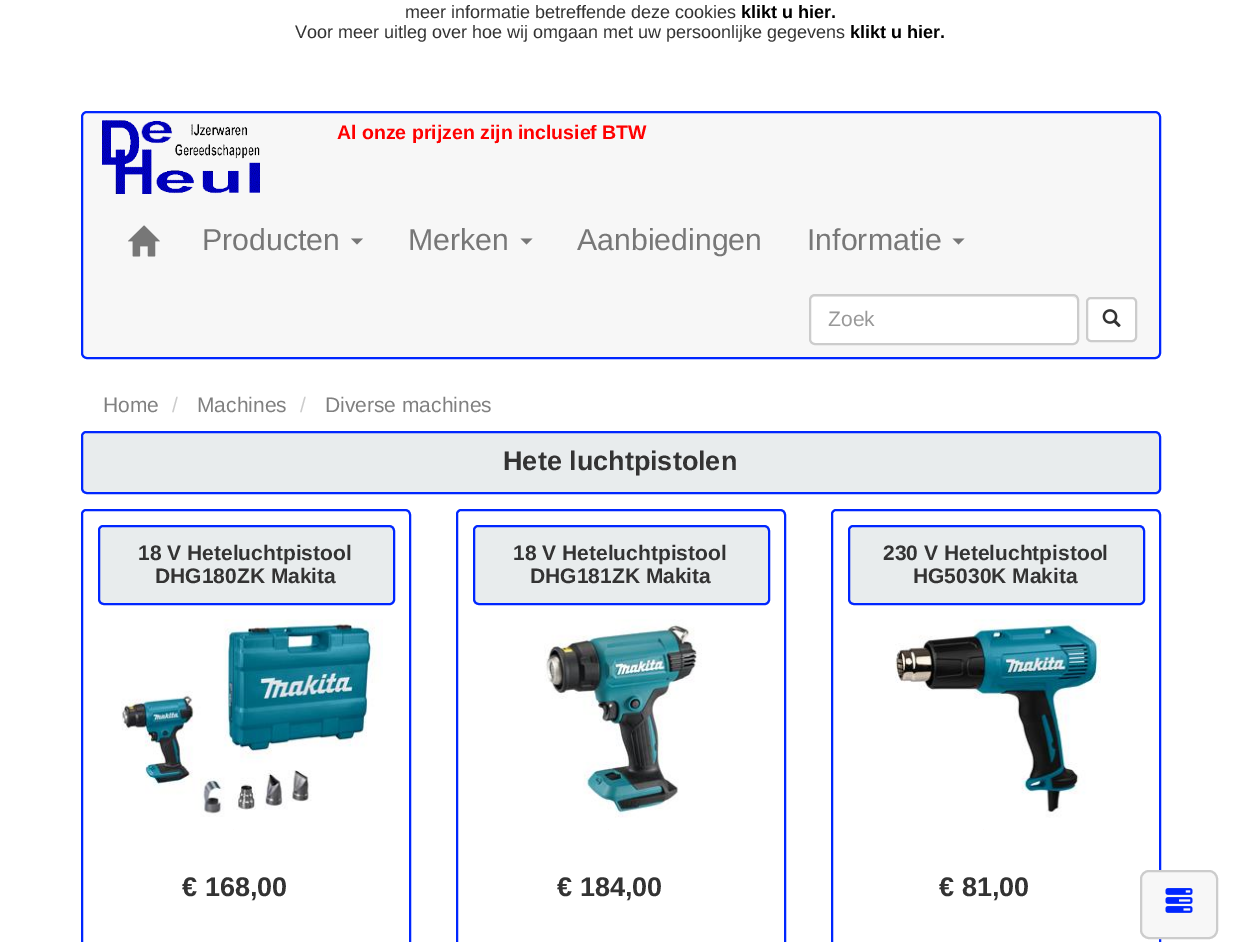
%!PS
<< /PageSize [1240 942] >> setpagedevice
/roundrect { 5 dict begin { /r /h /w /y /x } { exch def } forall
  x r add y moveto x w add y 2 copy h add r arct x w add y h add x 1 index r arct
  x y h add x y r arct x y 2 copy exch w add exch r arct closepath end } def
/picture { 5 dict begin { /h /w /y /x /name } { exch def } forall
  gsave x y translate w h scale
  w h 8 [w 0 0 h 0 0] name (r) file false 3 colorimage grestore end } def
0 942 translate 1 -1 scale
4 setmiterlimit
1 setgray
0 0 1240 942 rectfill
/LiberationSans-Regular [18 0 0 -18 0 0] selectfont
0.2 setgray
405 18 moveto (meer informatie betreffende deze cookies) show
/LiberationSans-Bold [18 0 0 -18 0 0] selectfont
0 setgray
741 18 moveto (klikt u hier.) show
/LiberationSans-Regular [18 0 0 -18 0 0] selectfont
0.2 setgray
295 38 moveto (Voor meer uitleg over hoe wij omgaan met uw persoonlijke gegevens) show
/LiberationSans-Bold [18 0 0 -18 0 0] selectfont
0 setgray
850 38 moveto (klikt u hier.) show
0.969 setgray
82 112 1078 246 5 roundrect gsave fill grestore
0 0.149 1 setrgbcolor
2 setlinewidth
stroke
(img1.rgb) 101 120 159 74 picture
/LiberationSans-Bold [19.5 0 0 -19.5 0 0] selectfont
1 0 0 setrgbcolor
337 139 moveto (Al onze prijzen zijn inclusief BTW) show
(img2.rgb) 128 225 32 32 picture
/LiberationSans-Regular [30.25 0 0 -30.25 0 0] selectfont
0.467 setgray
202 250 moveto (Producten) show
newpath 351 238.5 moveto 363 238.5 lineto 357 244.5 lineto closepath fill
408 250 moveto (Merken) show
newpath 520.5 238.5 moveto 532.5 238.5 lineto 526.5 244.5 lineto closepath fill
577 250 moveto (Aanbiedingen) show
807 250 moveto (Informatie) show
newpath 952.5 238.5 moveto 964.5 238.5 lineto 958.5 244.5 lineto closepath fill
1 setgray
809 294 270 51 6 roundrect fill
0.925 setgray
newpath 814 297 moveto 1072 297 lineto 1075 297 1077 299 1077 302 curveto 1077 299 1075 296 1072 296 curveto 815 296 lineto 812 296 810 299 810 302 curveto 810 299 812 297 814 297 curveto closepath fill
0.8 setgray
810 295 268 49 5 roundrect stroke
/LiberationSans-Regular [21 0 0 -21 0 0] selectfont
0.6 setgray
828 326 moveto (Zoek) show
1 setgray
1087 298 49 43 4 roundrect gsave fill grestore
0.8 setgray
stroke
(img3.rgb) 1102 309 19 19 picture
0.502 setgray
103 412 moveto (Home) show
0.8 setgray
172 412 moveto (/) show
0.502 setgray
197 412 moveto (Machines) show
0.8 setgray
300 412 moveto (/) show
0.502 setgray
325 412 moveto (Diverse machines) show
0.91 0.925 0.929 setrgbcolor
newpath 86 432 moveto 1155 432 lineto 1158 432 1160 434 1160 437 curveto 1160 489 lineto 1160 491 1158 493 1156 493 curveto 87 493 lineto 84 493 82 491 82 488 curveto 82 436 lineto 82 434 84 432 86 432 curveto closepath gsave fill grestore
0 0.149 1 setrgbcolor
stroke
/LiberationSans-Bold [27 0 0 -27 0 0] selectfont
0.2 setgray
503 470 moveto (Hete luchtpistolen) show
0 0.149 1 setrgbcolor
newpath 86 510 moveto 405 510 lineto 408 510 410 512 410 515 curveto 410 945 lineto 410 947 408 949 406 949 curveto 87 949 lineto 84 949 82 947 82 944 curveto 82 514 lineto 82 512 84 510 86 510 curveto closepath stroke
0.91 0.925 0.929 setrgbcolor
newpath 103 526 moveto 389 526 lineto 392 526 394 528 394 531 curveto 394 600 lineto 394 602 392 604 390 604 curveto 104 604 lineto 101 604 99 602 99 599 curveto 99 530 lineto 99 528 101 526 103 526 curveto closepath gsave fill grestore
0 0.149 1 setrgbcolor
stroke
/LiberationSans-Bold [21 0 0 -21 0 0] selectfont
0.2 setgray
138 560 moveto (18 V Heteluchtpistool) show
155 583 moveto (DHG180ZK Makita) show
(img4.rgb) 121 619 262 198 picture
1 0.98 0.98 setrgbcolor
233 829 1 1 rectfill
/LiberationSans-Bold [27 0 0 -27 0 0] selectfont
0.2 setgray
182 896 moveto (€ 168,00) show
0 0.149 1 setrgbcolor
newpath 461 510 moveto 780 510 lineto 783 510 785 512 785 515 curveto 785 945 lineto 785 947 783 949 781 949 curveto 462 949 lineto 459 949 457 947 457 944 curveto 457 514 lineto 457 512 459 510 461 510 curveto closepath stroke
0.91 0.925 0.929 setrgbcolor
newpath 478 526 moveto 764 526 lineto 767 526 769 528 769 531 curveto 769 600 lineto 769 602 767 604 765 604 curveto 479 604 lineto 476 604 474 602 474 599 curveto 474 530 lineto 474 528 476 526 478 526 curveto closepath gsave fill grestore
0 0.149 1 setrgbcolor
stroke
/LiberationSans-Bold [21 0 0 -21 0 0] selectfont
0.2 setgray
513 560 moveto (18 V Heteluchtpistool) show
530 583 moveto (DHG181ZK Makita) show
(img5.rgb) 544 619 158 199 picture
1 0.98 0.98 setrgbcolor
608 829 1 1 rectfill
/LiberationSans-Bold [27 0 0 -27 0 0] selectfont
0.2 setgray
557 896 moveto (€ 184,00) show
0 0.149 1 setrgbcolor
newpath 836 510 moveto 1155 510 lineto 1158 510 1160 512 1160 515 curveto 1160 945 lineto 1160 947 1158 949 1156 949 curveto 837 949 lineto 834 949 832 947 832 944 curveto 832 514 lineto 832 512 834 510 836 510 curveto closepath stroke
0.91 0.925 0.929 setrgbcolor
newpath 853 526 moveto 1139 526 lineto 1142 526 1144 528 1144 531 curveto 1144 600 lineto 1144 602 1142 604 1140 604 curveto 854 604 lineto 851 604 849 602 849 599 curveto 849 530 lineto 849 528 851 526 853 526 curveto closepath gsave fill grestore
0 0.149 1 setrgbcolor
stroke
/LiberationSans-Bold [21 0 0 -21 0 0] selectfont
0.2 setgray
883 560 moveto (230 V Heteluchtpistool) show
913 583 moveto (HG5030K Makita) show
(img6.rgb) 895 619 206 199 picture
1 0.98 0.98 setrgbcolor
983 829 1 1 rectfill
/LiberationSans-Bold [27 0 0 -27 0 0] selectfont
0.2 setgray
939 896 moveto (€ 81,00) show
0.969 setgray
1141 871 76 67 8 roundrect gsave fill grestore
0.8 setgray
stroke
(img7.rgb) 1165 888 28 25 picture
showpage
